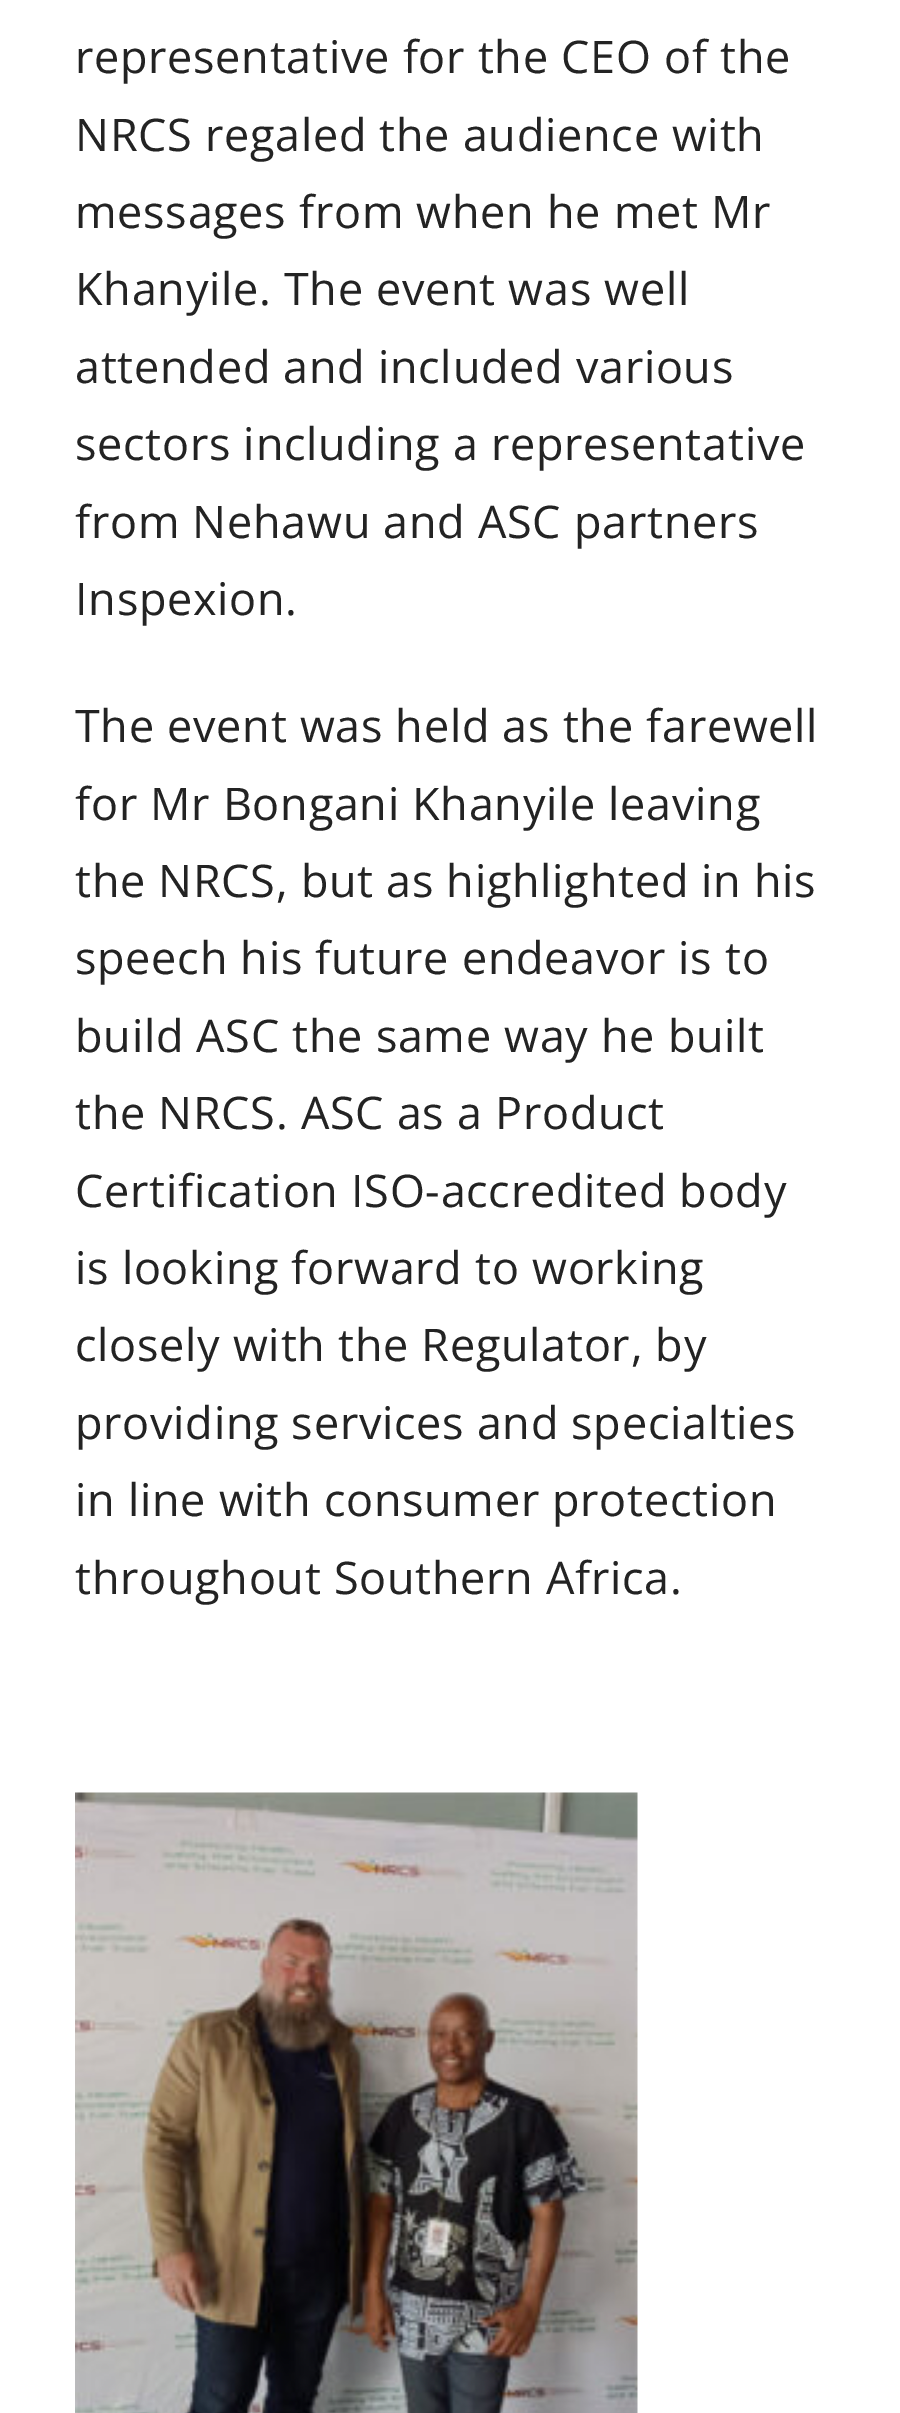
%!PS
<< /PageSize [900 2413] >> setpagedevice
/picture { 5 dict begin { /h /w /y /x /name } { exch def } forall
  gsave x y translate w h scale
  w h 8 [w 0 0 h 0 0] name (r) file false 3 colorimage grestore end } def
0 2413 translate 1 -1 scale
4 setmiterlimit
1 setgray
0 0 900 2413 rectfill
/OpenSans-Regular [45 0 0 -45 0 0] selectfont
0.137 setgray
75 73 moveto 0.7 0 (representative for the CEO of the) ashow
75 151 moveto 0.7 0 (NRCS regaled the audience with) ashow
75 228 moveto 0.7 0 (messages from when he met Mr) ashow
75 305 moveto 0.7 0 (Khanyile. The event was well) ashow
75 383 moveto 0.7 0 (attended and included various) ashow
75 460 moveto 0.7 0 (sectors including a representative) ashow
75 538 moveto 0.7 0 (from Nehawu and ASC partners) ashow
75 615 moveto 0.7 0 (Inspexion.) ashow
75 742 moveto 0.7 0 (The event was held as the farewell) ashow
75 820 moveto 0.7 0 (for Mr Bongani Khanyile leaving) ashow
75 897 moveto 0.7 0 (the NRCS, but as highlighted in his) ashow
75 974 moveto 0.7 0 (speech his future endeavor is to) ashow
75 1052 moveto 0.7 0 (build ASC the same way he built) ashow
75 1129 moveto 0.7 0 (the NRCS. ASC as a Product) ashow
75 1207 moveto 0.7 0 (Certification ISO-accredited body) ashow
75 1284 moveto 0.7 0 (is looking forward to working) ashow
75 1361 moveto 0.7 0 (closely with the Regulator, by) ashow
75 1439 moveto 0.7 0 (providing services and specialties) ashow
75 1516 moveto 0.7 0 (in line with consumer protection) ashow
75 1594 moveto 0.7 0 (throughout Southern Africa.) ashow
(img1.rgb) 75 1792 563 621 picture
showpage
